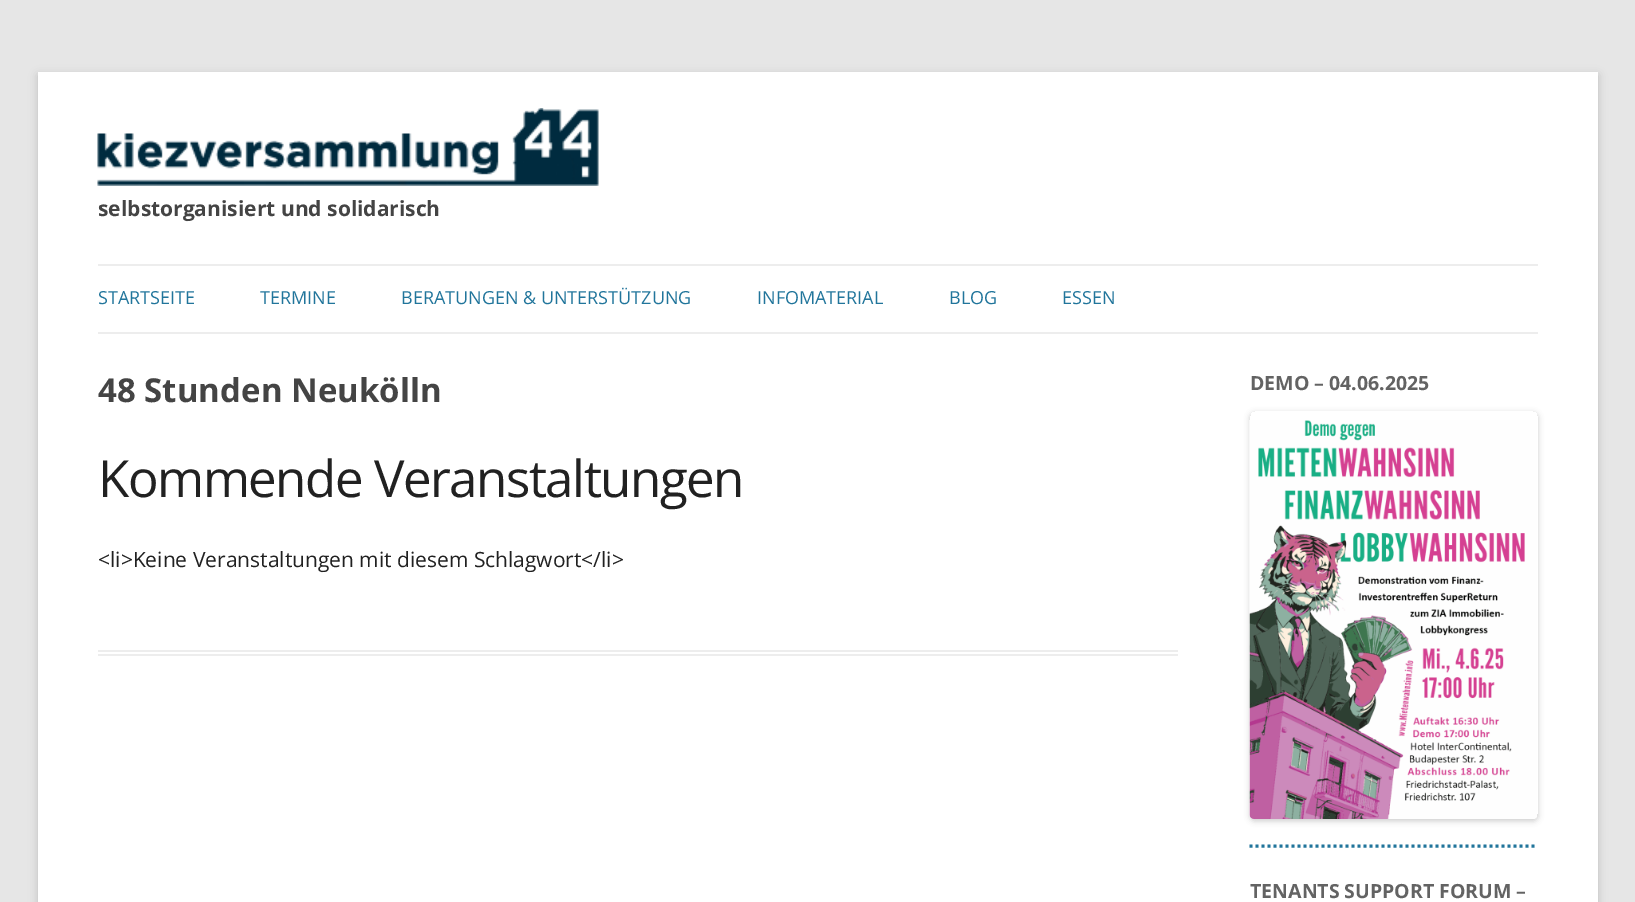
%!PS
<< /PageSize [1635 902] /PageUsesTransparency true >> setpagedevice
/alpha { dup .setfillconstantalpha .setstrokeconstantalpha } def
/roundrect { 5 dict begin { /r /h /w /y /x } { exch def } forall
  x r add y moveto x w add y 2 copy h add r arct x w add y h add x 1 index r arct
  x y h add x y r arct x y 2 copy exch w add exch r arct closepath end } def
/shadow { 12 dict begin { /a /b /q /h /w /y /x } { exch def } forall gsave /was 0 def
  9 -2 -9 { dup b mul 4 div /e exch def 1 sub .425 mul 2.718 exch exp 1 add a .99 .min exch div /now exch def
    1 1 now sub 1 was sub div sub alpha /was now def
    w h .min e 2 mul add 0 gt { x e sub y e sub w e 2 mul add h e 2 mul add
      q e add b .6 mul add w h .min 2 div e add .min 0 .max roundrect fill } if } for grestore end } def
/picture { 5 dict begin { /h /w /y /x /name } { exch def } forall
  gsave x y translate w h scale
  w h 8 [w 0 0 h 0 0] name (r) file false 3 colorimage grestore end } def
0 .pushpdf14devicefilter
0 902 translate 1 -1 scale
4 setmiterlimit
0.902 setgray
0 0 1635 902 rectfill
0.392 setgray
38 75 1560 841 0 4.5 0.3 shadow
1 setgray
38 72 1560 830 rectfill
(img1.rgb) 97 108 502 78 picture
/OpenSans-Bold [21 0 0 -21 0 0] selectfont
0.267 setgray
98 216 moveto (selbstorganisiert und solidarisch) show
0.929 setgray
98 264 1440 2 rectfill
98 332 1440 2 rectfill
/OpenSans-Regular [18 0 0 -18 0 0] selectfont
0.129 0.459 0.608 setrgbcolor
98 304 moveto (STARTSEITE) show
260 304 moveto (TERMINE) show
401 304 moveto (BERATUNGEN & UNTERSTÜTZUNG) show
757 304 moveto (INFOMATERIAL) show
949 304 moveto (BLOG) show
1062 304 moveto (ESSEN) show
0.929 setgray
98 650 1080 2 rectfill
98 654 1080 2 rectfill
/OpenSans-Bold [33 0 0 -33 0 0] selectfont
0.267 setgray
98 402 moveto (48 Stunden Neukölln) show
/OpenSans-Regular [51 0 0 -51 0 0] selectfont
0.129 setgray
98 497 moveto -1.5 0 (Kommende Veranstaltungen) ashow
/OpenSans-Regular [21 0 0 -21 0 0] selectfont
98 567 moveto (<li>Keine Veranstaltungen mit diesem Schlagwort</li>) show
0.129 0.459 0.608 setrgbcolor
3 setlinewidth
[3 3] 0 setdash
newpath 1249.5 846 moveto 1537.5 846 lineto stroke
/OpenSans-Bold [19.5 0 0 -19.5 0 0] selectfont
0.388 setgray
1250 390 moveto (DEMO – 04.06.2025) show
gsave
newpath 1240 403 moveto 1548 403 lineto 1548 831 lineto 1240 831 lineto closepath 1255 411 moveto 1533 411 lineto 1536 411 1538 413 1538 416 curveto 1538 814 lineto 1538 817 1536 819 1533 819 curveto 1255 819 lineto 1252 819 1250 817 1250 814 curveto 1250 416 lineto 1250 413 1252 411 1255 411 curveto closepath eoclip newpath
0 setgray
1250 413 288 408 5 3 0.2 shadow
grestore
(img2.rgb) 1249 420 288 399 picture
1250 898 moveto (TENANTS SUPPORT FORUM –) show
.poppdf14devicefilter showpage
